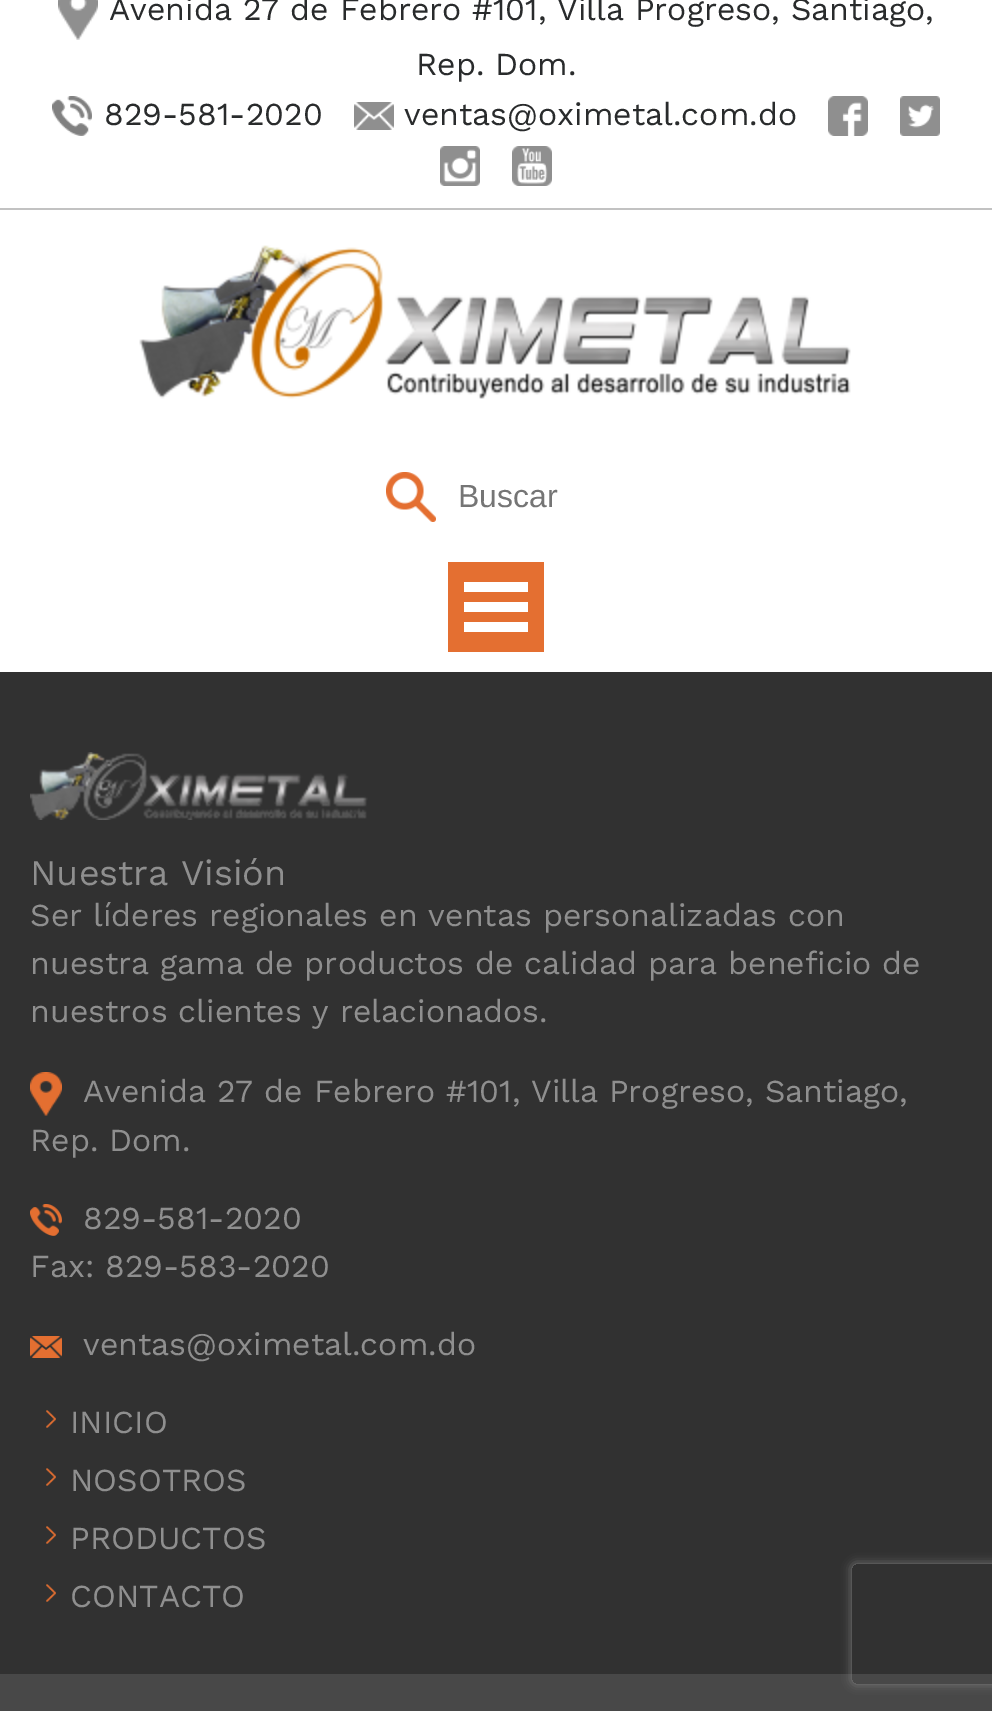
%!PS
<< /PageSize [992 1711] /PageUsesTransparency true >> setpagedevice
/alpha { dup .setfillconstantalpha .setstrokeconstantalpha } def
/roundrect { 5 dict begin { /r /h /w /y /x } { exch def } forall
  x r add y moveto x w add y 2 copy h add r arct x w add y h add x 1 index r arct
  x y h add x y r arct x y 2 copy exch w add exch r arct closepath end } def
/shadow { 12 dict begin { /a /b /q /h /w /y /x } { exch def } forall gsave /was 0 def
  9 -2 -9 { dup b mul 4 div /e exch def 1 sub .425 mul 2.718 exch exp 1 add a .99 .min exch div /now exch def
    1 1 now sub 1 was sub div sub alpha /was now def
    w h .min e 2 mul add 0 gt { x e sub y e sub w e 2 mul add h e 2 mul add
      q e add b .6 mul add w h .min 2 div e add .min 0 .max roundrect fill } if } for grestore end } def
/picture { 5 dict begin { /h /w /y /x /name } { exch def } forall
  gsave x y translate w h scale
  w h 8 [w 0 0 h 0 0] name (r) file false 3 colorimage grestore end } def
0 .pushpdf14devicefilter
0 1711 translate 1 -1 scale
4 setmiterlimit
1 setgray
0 0 992 1711 rectfill
0.761 setgray
0 208 992 2 rectfill
(img1.rgb) 58 0 40 40 picture
/WorkSans-Regular [32 0 0 -32 0 0] selectfont
0.161 0.169 0.173 setrgbcolor
109 20 moveto (Avenida 27 de Febrero #101, Villa Progreso, Santiago,) show
416 75 moveto (Rep. Dom.) show
(img2.rgb) 52 96 40 40 picture
104 125 moveto (829-581-2020) show
(img3.rgb) 354 102 40 28 picture
404 125 moveto (ventas@oximetal.com.do) show
(img4.rgb) 828 96 40 40 picture
(img5.rgb) 900 96 40 40 picture
(img6.rgb) 440 146 40 40 picture
(img7.rgb) 512 146 40 40 picture
(img8.rgb) 139 245 712 154 picture
(img9.rgb) 386 472 50 50 picture
/LiberationSans-Regular [32 0 0 -32 0 0] selectfont
0.459 setgray
458 507 moveto (Buscar) show
0.894 0.435 0.192 setrgbcolor
448 562 96 90 rectfill
1 setgray
464 622 64 10 rectfill
464 602 64 10 rectfill
464 582 64 10 rectfill
0.192 setgray
0 672 992 1002 rectfill
(img10.rgb) 30 752 338 68 picture
/WorkSans-Regular [36 0 0 -36 0 0] selectfont
0.561 setgray
30 885 moveto (Nuestra Visión) show
/WorkSans-Regular [32 0 0 -32 0 0] selectfont
30 926 moveto (Ser líderes regionales en ventas personalizadas con) show
30 974 moveto (nuestra gama de productos de calidad para beneficio de) show
30 1022 moveto (nuestros clientes y relacionados.) show
(img11.rgb) 30 1072 32 44 picture
83 1102 moveto (Avenida 27 de Febrero #101, Villa Progreso, Santiago,) show
30 1151 moveto (Rep. Dom.) show
(img12.rgb) 30 1204 32 32 picture
83 1229 moveto (829-581-2020) show
30 1277 moveto (Fax: 829-583-2020) show
(img13.rgb) 30 1336 32 22 picture
83 1355 moveto (ventas@oximetal.com.do) show
(img14.rgb) 46 1410 10 18 picture
70 1433 moveto (INICIO) show
(img15.rgb) 46 1468 10 18 picture
70 1491 moveto (NOSOTROS) show
(img16.rgb) 46 1526 10 18 picture
70 1549 moveto (PRODUCTOS) show
(img17.rgb) 46 1584 10 18 picture
70 1607 moveto (CONTACTO) show
0.282 setgray
0 1674 992 37 rectfill
gsave
newpath 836 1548 moveto 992 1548 lineto 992 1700 lineto 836 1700 lineto closepath 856 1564 moveto 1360 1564 lineto 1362 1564 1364 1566 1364 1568 curveto 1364 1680 lineto 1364 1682 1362 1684 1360 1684 curveto 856 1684 lineto 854 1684 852 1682 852 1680 curveto 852 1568 lineto 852 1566 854 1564 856 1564 curveto closepath eoclip newpath
0.502 setgray
852 1564 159 120 4 5 1 shadow
grestore
.poppdf14devicefilter showpage
